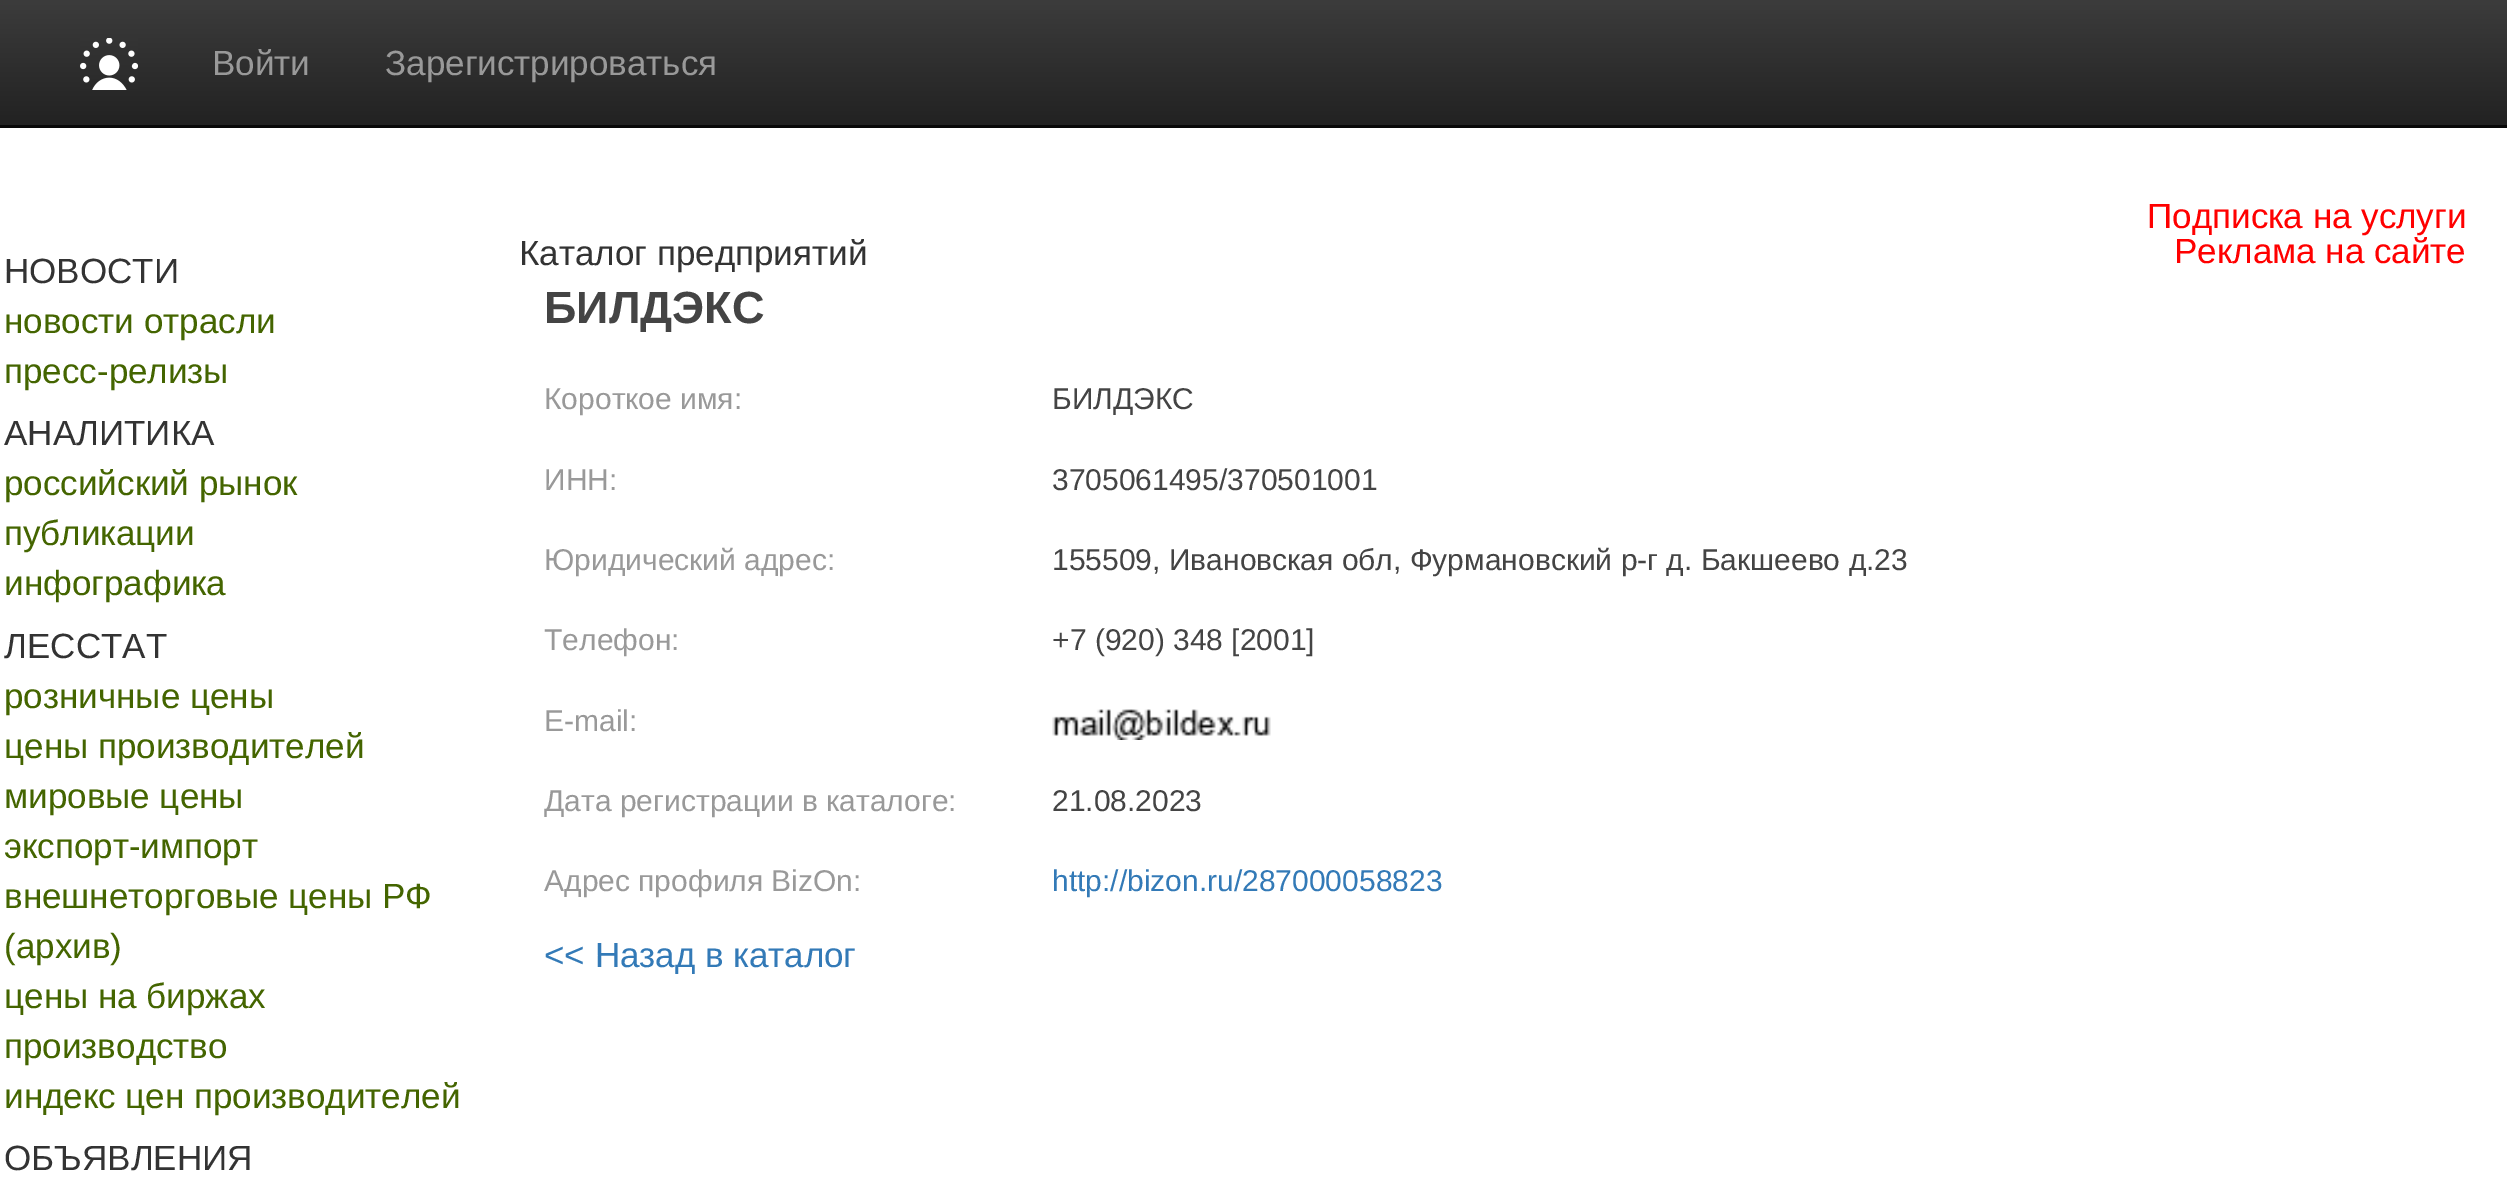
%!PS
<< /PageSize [2507 1178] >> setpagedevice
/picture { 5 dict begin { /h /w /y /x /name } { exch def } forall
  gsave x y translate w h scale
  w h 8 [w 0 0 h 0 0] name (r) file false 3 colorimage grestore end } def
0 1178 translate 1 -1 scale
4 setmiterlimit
1 setgray
0 0 2507 1178 rectfill
gsave newpath 0 0 moveto 2507 0 lineto 2507 125 lineto 0 125 lineto closepath clip newpath
<< /ShadingType 2 /ColorSpace /DeviceRGB /Coords [1254 0 1254 125] /Extend [true true] /Function << /FunctionType 2 /Domain [0 1] /C0 [0.235 0.235 0.235] /C1 [0.133 0.133 0.133] /N 1 >> >> shfill grestore
0.031 setgray
0 125 2507 3 rectfill
(img1.rgb) 80 38 58 52 picture
/LiberationSans-Regular [35 0 0 -35 0 0] selectfont
0.6 setgray
212 75 moveto (Войти) show
385 75 moveto (Зарегистрироваться) show
0.2 setgray
4 283 moveto (НОВОСТИ) show
0.267 0.396 0 setrgbcolor
4 333 moveto (новости отрасли) show
4 383 moveto (пресс-релизы) show
0.2 setgray
4 445 moveto (АНАЛИТИКА) show
0.267 0.396 0 setrgbcolor
4 495 moveto (российский рынок) show
4 545 moveto (публикации) show
4 595 moveto (инфографика) show
0.2 setgray
4 658 moveto (ЛЕССТАТ) show
0.267 0.396 0 setrgbcolor
4 708 moveto (розничные цены) show
4 758 moveto (цены производителей) show
4 808 moveto (мировые цены) show
4 858 moveto (экспорт-импорт) show
4 908 moveto (внешнеторговые цены РФ) show
4 958 moveto (\(архив\)) show
4 1008 moveto (цены на биржах) show
4 1058 moveto (производство) show
4 1108 moveto (индекс цен производителей) show
0.2 setgray
4 1170 moveto (ОБЪЯВЛЕНИЯ) show
519 265 moveto (Каталог предприятий) show
/LiberationSans-Bold [45 0 0 -45 0 0] selectfont
0.267 setgray
544 323 moveto (БИЛДЭКС) show
/LiberationSans-Regular [30 0 0 -30 0 0] selectfont
0.6 setgray
544 409 moveto (Короткое имя:) show
0.267 setgray
1052 409 moveto (БИЛДЭКС) show
0.6 setgray
544 490 moveto (ИНН:) show
0.267 setgray
1052 490 moveto (3705061495/370501001) show
0.6 setgray
544 570 moveto (Юридический адрес:) show
0.267 setgray
1052 570 moveto (155509, Ивановская обл, Фурмановский р-г д. Бакшеево д.23) show
0.6 setgray
544 650 moveto (Телефон:) show
0.267 setgray
1052 650 moveto (+7 \(920\) 348 [2001]) show
0.6 setgray
544 731 moveto (E-mail:) show
(img2.rgb) 1052 709 219 31 picture
544 811 moveto (Дата регистрации в каталоге:) show
0.267 setgray
1052 811 moveto (21.08.2023) show
0.6 setgray
544 891 moveto (Адрес профиля BizOn:) show
0.2 0.478 0.718 setrgbcolor
1052 891 moveto (http://bizon.ru/287000058823) show
/LiberationSans-Regular [35 0 0 -35 0 0] selectfont
544 967 moveto (<< Назад в каталог) show
1 0 0 setrgbcolor
2147 228 moveto (Подписка на услуги) show
2174 263 moveto (Реклама на сайте) show
showpage
